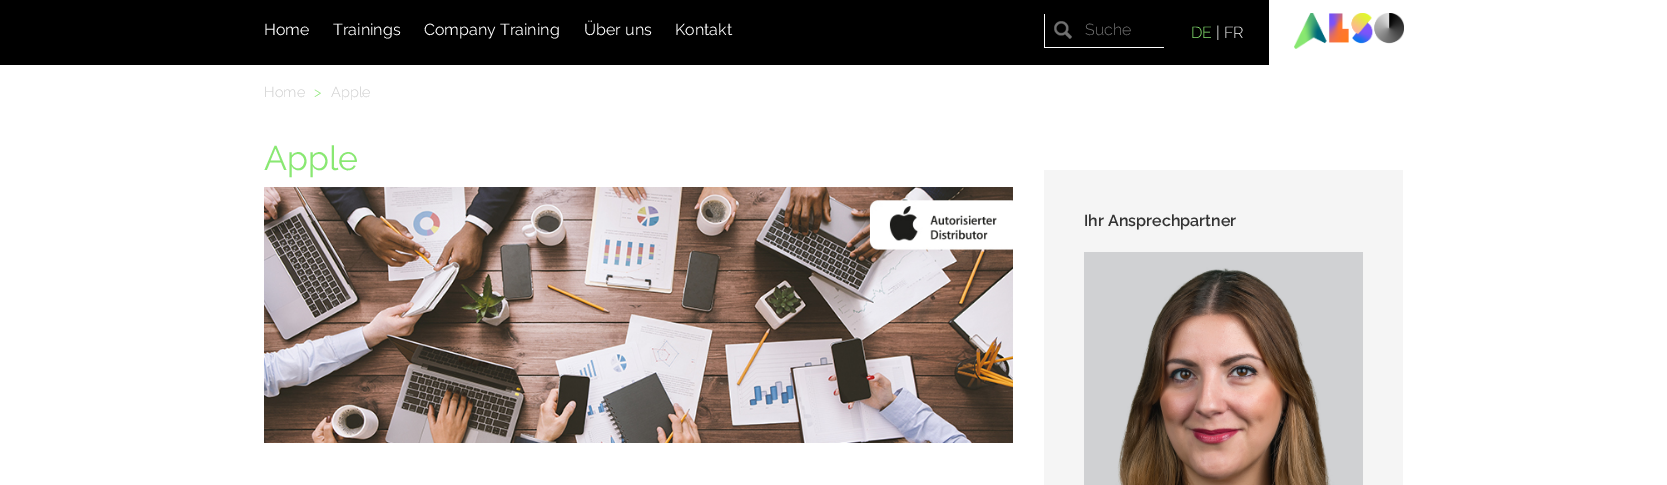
%!PS
<< /PageSize [1667 485] >> setpagedevice
/picture { 5 dict begin { /h /w /y /x /name } { exch def } forall
  gsave x y translate w h scale
  w h 8 [w 0 0 h 0 0] name (r) file false 3 colorimage grestore end } def
0 485 translate 1 -1 scale
4 setmiterlimit
1 setgray
0 0 1667 485 rectfill
0 setgray
0 0 1269 65 rectfill
/Raleway-Regular [16 0 0 -16 0 0] selectfont
1 setgray
264 35 moveto (Home) show
333 35 moveto (Trainings) show
424 35 moveto (Company Training) show
584 35 moveto (Über uns) show
675 35 moveto (Kontakt) show
(img1.rgb) 1054 21 18 18 picture
1044 47 120 1 rectfill
1044 14 1 34 rectfill
/Raleway-Light [16 0 0 -16 0 0] selectfont
0.467 setgray
1085 35 moveto (Suche) show
0.537 0.91 0.447 setrgbcolor
1191 38 moveto (DE) show
1 setgray
1216 38 moveto (| FR) show
(img2.rgb) 1294 13 110 36 picture
/Raleway-Light [14.5 0 0 -14.5 0 0] selectfont
0.8 setgray
264 97 moveto (Home) show
0.537 0.91 0.447 setrgbcolor
314 97 moveto (>) show
0.8 setgray
331 97 moveto (Apple) show
/Raleway-Regular [34 0 0 -34 0 0] selectfont
0.537 0.91 0.447 setrgbcolor
264 170 moveto (Apple) show
(img3.rgb) 264 187 749 256 picture
0.961 setgray
1044 170 359 315 rectfill
/Raleway-SemiBold [16 0 0 -16 0 0] selectfont
0.2 setgray
1084 226 moveto (Ihr Ansprechpartner) show
(img4.rgb) 1084 252 279 233 picture
showpage
